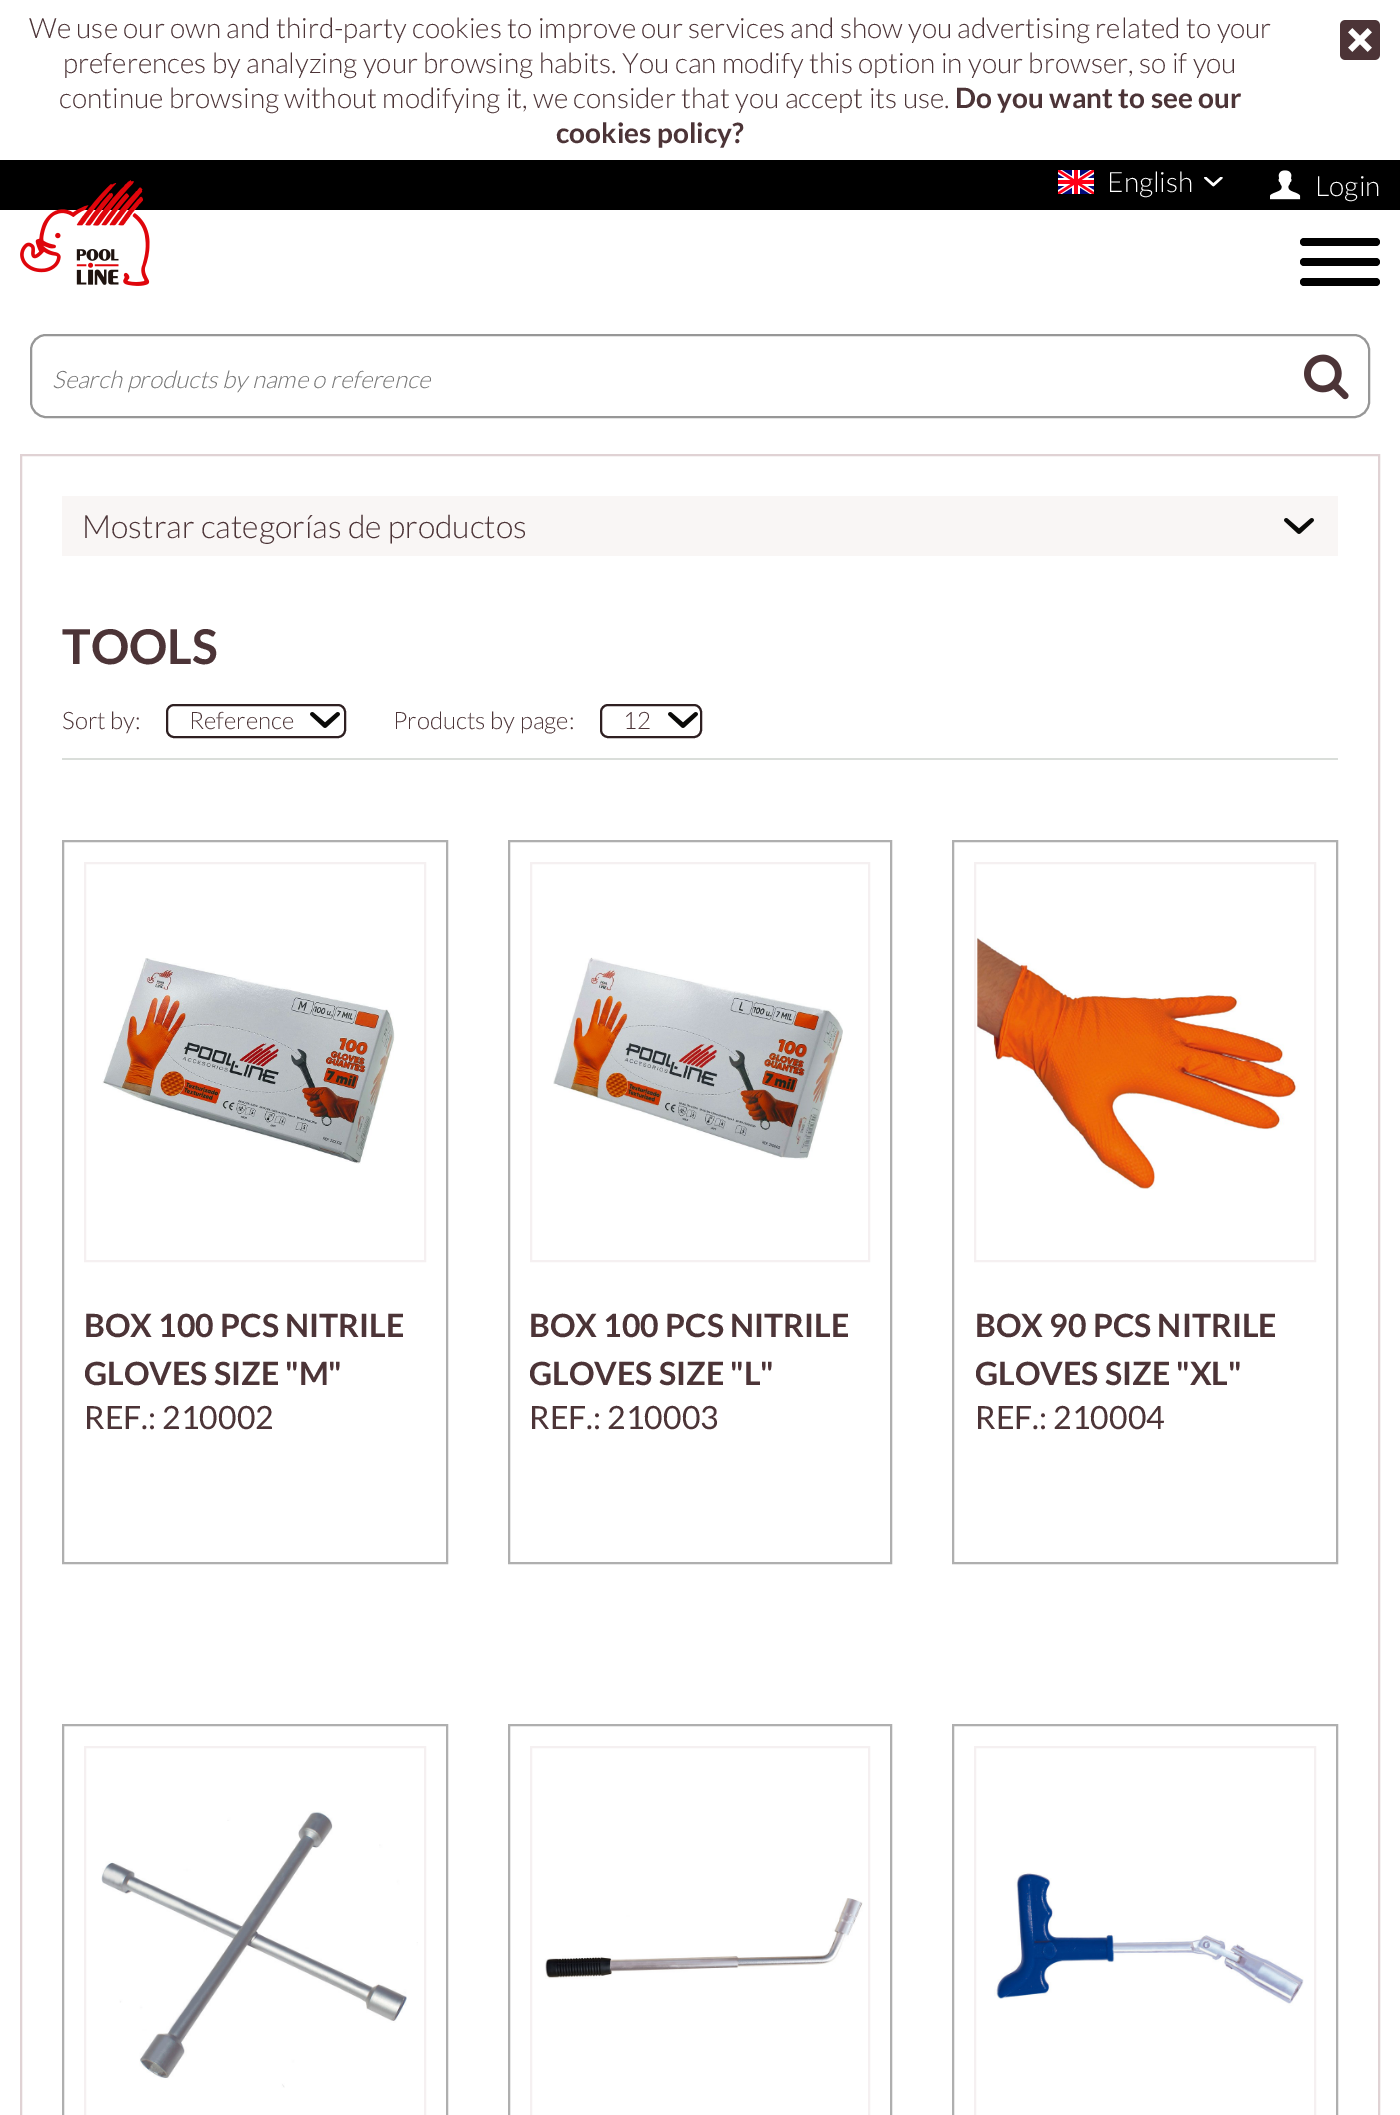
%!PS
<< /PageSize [1400 2115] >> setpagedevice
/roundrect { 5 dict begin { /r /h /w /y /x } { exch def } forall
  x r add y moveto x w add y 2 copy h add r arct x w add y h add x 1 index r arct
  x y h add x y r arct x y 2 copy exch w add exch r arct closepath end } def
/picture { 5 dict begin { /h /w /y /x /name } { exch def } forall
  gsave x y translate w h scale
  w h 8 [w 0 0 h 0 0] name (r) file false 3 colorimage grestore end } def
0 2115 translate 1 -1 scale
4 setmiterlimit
1 setgray
0 0 1400 2115 rectfill
/Lato-Light [28 0 0 -28 0 0] selectfont
0.298 0.204 0.216 setrgbcolor
29 38 moveto (We use our own and third-party cookies to improve our services and show you advertising related to your) show
63 73 moveto (preferences by analyzing your browsing habits. You can modify this option in your browser, so if you) show
59 108 moveto (continue browsing without modifying it, we consider that you accept its use.) show
/Lato-Bold [28 0 0 -28 0 0] selectfont
955 108 moveto (Do you want to see our) show
556 143 moveto (cookies policy?) show
(img1.rgb) 1340 20 40 40 picture
0 setgray
0 160 1400 50 rectfill
(img2.rgb) 1058 170 36 24 picture
/Lato-Light [28 0 0 -28 0 0] selectfont
1 setgray
1107 192 moveto (English) show
(img3.rgb) 1204 177 19 10 picture
(img4.rgb) 1270 170 31 30 picture
1315 196 moveto (Login) show
(img5.rgb) 20 180 130 106 picture
0 setgray
1300 258 80 8 4 roundrect fill
1300 238 80 8 4 roundrect fill
1300 278 80 8 4 roundrect fill
0.592 setgray
2 setlinewidth
31 335 1338 82 15 roundrect stroke
/Lato-LightItalic [24 0 0 -24 0 0] selectfont
0.459 setgray
52 388 moveto (Search products by name o reference) show
(img6.rgb) 1304 354 45 46 picture
0.878 0.824 0.831 setrgbcolor
21 455 1358 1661 rectstroke
0.976 0.965 0.961 setrgbcolor
62 496 1276 60 rectfill
(img7.rgb) 1284 518 30 16 picture
/Lato-Light [32 0 0 -32 0 0] selectfont
0.298 0.204 0.216 setrgbcolor
82 538 moveto (Mostrar categorías de productos) show
/Lato-Bold [48 0 0 -48 0 0] selectfont
62 664 moveto (TOOLS) show
0.855 0.871 0.855 setrgbcolor
62 758 1276 2 rectfill
/Lato-Light [24 0 0 -24 0 0] selectfont
0.298 0.204 0.216 setrgbcolor
62 729 moveto (Sort by:) show
(img8.rgb) 310 712 30 16 picture
0.18 0.122 0.129 setrgbcolor
167 705 178 32 7 roundrect stroke
0.298 0.204 0.216 setrgbcolor
189 729 moveto (Reference) show
393 729 moveto (Products by page:) show
(img8.rgb) 668 712 30 16 picture
0.18 0.122 0.129 setrgbcolor
601 705 100 32 7 roundrect stroke
0.298 0.204 0.216 setrgbcolor
623 729 moveto (12) show
0.686 setgray
63 841 384 722 rectstroke
0.961 0.941 0.945 setrgbcolor
85 863 340 398 rectstroke
(img9.rgb) 102 958 293 206 picture
/Lato-Bold [32 0 0 -32 0 0] selectfont
0.298 0.204 0.216 setrgbcolor
84 1337 moveto (BOX 100 PCS NITRILE) show
84 1385 moveto (GLOVES SIZE "M") show
/Lato-Regular [32 0 0 -32 0 0] selectfont
84 1429 moveto (REF.: 210002) show
0.686 setgray
509 841 382 722 rectstroke
0.961 0.941 0.945 setrgbcolor
531 863 338 398 rectstroke
(img10.rgb) 553 957 290 203 picture
/Lato-Bold [32 0 0 -32 0 0] selectfont
0.298 0.204 0.216 setrgbcolor
529 1337 moveto (BOX 100 PCS NITRILE) show
529 1385 moveto (GLOVES SIZE "L") show
/Lato-Regular [32 0 0 -32 0 0] selectfont
529 1429 moveto (REF.: 210003) show
0.686 setgray
953 841 384 722 rectstroke
0.961 0.941 0.945 setrgbcolor
975 863 340 398 rectstroke
(img11.rgb) 977 937 323 252 picture
/Lato-Bold [32 0 0 -32 0 0] selectfont
0.298 0.204 0.216 setrgbcolor
975 1337 moveto (BOX 90 PCS NITRILE) show
975 1385 moveto (GLOVES SIZE "XL") show
/Lato-Regular [32 0 0 -32 0 0] selectfont
975 1429 moveto (REF.: 210004) show
0.686 setgray
63 1725 384 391 rectstroke
0.961 0.941 0.945 setrgbcolor
85 1747 340 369 rectstroke
(img12.rgb) 101 1811 317 277 picture
0.686 setgray
509 1725 382 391 rectstroke
0.961 0.941 0.945 setrgbcolor
531 1747 338 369 rectstroke
(img13.rgb) 545 1898 318 81 picture
0.686 setgray
953 1725 384 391 rectstroke
0.961 0.941 0.945 setrgbcolor
975 1747 340 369 rectstroke
(img14.rgb) 994 1872 310 134 picture
showpage
